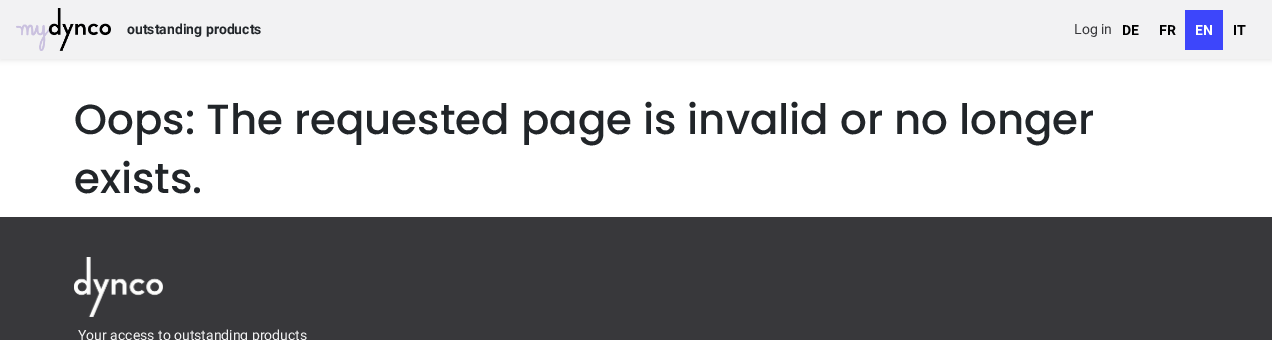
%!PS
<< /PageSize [1272 340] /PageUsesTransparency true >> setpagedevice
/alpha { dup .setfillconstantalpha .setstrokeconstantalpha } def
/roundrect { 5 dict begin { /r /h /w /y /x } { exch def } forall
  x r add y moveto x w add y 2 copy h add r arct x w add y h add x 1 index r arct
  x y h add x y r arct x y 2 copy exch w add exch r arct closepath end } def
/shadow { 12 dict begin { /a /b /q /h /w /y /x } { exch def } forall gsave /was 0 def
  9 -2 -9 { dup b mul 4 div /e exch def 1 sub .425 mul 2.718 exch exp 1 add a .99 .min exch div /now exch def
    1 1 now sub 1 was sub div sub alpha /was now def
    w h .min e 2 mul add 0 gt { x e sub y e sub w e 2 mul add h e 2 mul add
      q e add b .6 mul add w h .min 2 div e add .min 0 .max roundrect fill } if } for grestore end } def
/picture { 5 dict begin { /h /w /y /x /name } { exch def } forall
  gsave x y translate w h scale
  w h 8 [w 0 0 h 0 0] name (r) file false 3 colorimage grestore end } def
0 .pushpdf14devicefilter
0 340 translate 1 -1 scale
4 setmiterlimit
1 setgray
0 0 1272 340 rectfill
0 setgray
0 2 1272 59 0 2 0.07 shadow
0.949 0.949 0.953 setrgbcolor
0 0 1272 59 rectfill
(img1.rgb) 16 8 95 43 picture
/Roboto-Bold [14 0 0 -14 0 0] selectfont
0.129 0.145 0.161 setrgbcolor
127 34 moveto (outstanding products) show
/Roboto-Regular [14 0 0 -14 0 0] selectfont
0.22 0.22 0.231 setrgbcolor
1074 34 moveto (Log in) show
/Roboto-Bold [14 0 0 -14 0 0] selectfont
0 setgray
1122 35 moveto (DE) show
1159 35 moveto (FR) show
0.239 0.275 0.984 setrgbcolor
1185 10 38 40 rectfill
1 setgray
1195 35 moveto (EN) show
0 setgray
1233 35 moveto (IT) show
/Poppins-Medium [42 0 0 -42 0 0] selectfont
0.129 0.145 0.161 setrgbcolor
74 134 moveto (Oops: The requested page is invalid or no longer) show
74 193 moveto (exists.) show
0.22 0.22 0.231 setrgbcolor
0 217 1272 123 rectfill
(img2.rgb) 74 257 89 60 picture
/Roboto-Regular [14 0 0 -14 0 0] selectfont
0.949 0.949 0.953 setrgbcolor
78 340 moveto (Your access to outstanding products) show
.poppdf14devicefilter showpage
